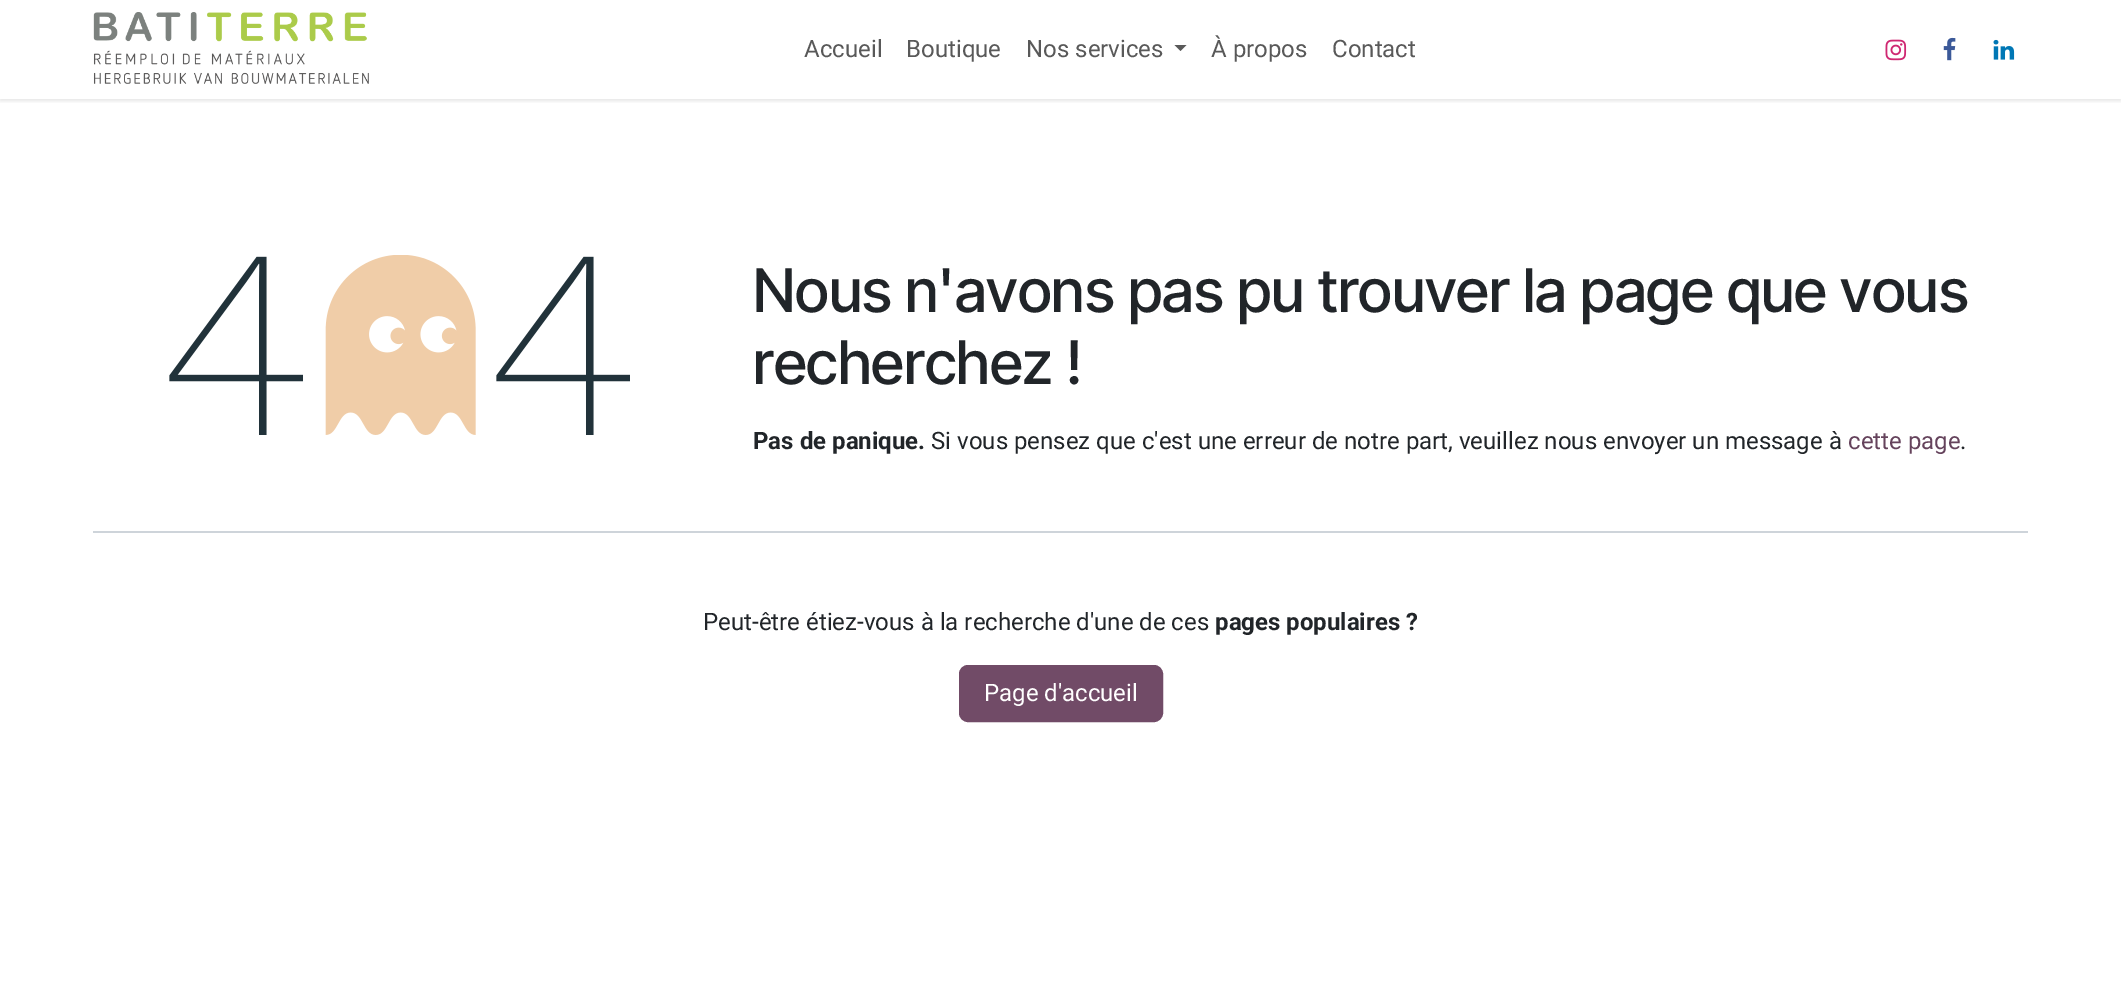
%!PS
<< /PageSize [2121 986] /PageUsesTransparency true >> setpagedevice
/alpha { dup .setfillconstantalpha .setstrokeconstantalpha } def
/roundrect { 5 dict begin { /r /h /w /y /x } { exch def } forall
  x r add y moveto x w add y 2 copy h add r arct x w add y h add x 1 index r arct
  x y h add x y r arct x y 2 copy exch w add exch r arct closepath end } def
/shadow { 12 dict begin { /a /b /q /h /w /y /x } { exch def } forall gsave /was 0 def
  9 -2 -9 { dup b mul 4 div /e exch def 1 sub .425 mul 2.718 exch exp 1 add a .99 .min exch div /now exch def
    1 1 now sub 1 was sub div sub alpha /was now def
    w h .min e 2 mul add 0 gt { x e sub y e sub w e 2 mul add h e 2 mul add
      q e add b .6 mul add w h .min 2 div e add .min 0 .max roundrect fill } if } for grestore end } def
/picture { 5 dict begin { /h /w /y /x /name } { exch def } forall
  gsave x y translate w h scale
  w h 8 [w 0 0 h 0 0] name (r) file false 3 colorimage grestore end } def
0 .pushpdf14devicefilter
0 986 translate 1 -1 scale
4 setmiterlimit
1 setgray
0 0 2121 986 rectfill
gsave
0 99 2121 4 rectclip
0 setgray
0 2 2121 99 0 2 0.1 shadow
grestore
(img1.rgb) 93 12 276 72 picture
/Roboto-Regular [24 0 0 -24 0 0] selectfont
0.349 setgray
804 57 moveto (Accueil) show
906 57 moveto (Boutique) show
1026 57 moveto (Nos services) show
newpath 1174.5 45 moveto 1186.5 45 lineto 1180.5 51 lineto closepath fill
1211 57 moveto (À propos) show
1332 57 moveto (Contact) show
(img2.rgb) 1885 39 22 22 picture
(img3.rgb) 1943 37 13 24 picture
(img4.rgb) 1993 39 22 21 picture
(img5.rgb) 169 255 461 180 picture
/InterTight-Medium [60 0 0 -60 0 0] selectfont
0.129 0.145 0.161 setrgbcolor
753 312 moveto (Nous n'avons pas pu trouver la page que vous) show
753 384 moveto (recherchez !) show
/Roboto-Bold [24 0 0 -24 0 0] selectfont
753 449 moveto (Pas de panique.) show
/Roboto-Regular [24 0 0 -24 0 0] selectfont
931 449 moveto (Si vous pensez que c'est une erreur de notre part, veuillez nous envoyer un message à) show
0.396 0.263 0.361 setrgbcolor
1848 449 moveto (cette page) show
0.129 0.145 0.161 setrgbcolor
1960 449 moveto (.) show
0.808 0.831 0.855 setrgbcolor
93 531 1935 2 rectfill
0.129 0.145 0.161 setrgbcolor
703 630 moveto (Peut-être étiez-vous à la recherche d'une de ces) show
/Roboto-Bold [24 0 0 -24 0 0] selectfont
1215 630 moveto (pages populaires ?) show
0.443 0.294 0.404 setrgbcolor
960 666 202 55 8 roundrect gsave fill grestore
2 setlinewidth
stroke
/Roboto-Regular [24 0 0 -24 0 0] selectfont
1 setgray
984 701 moveto (Page d'accueil) show
.poppdf14devicefilter showpage
